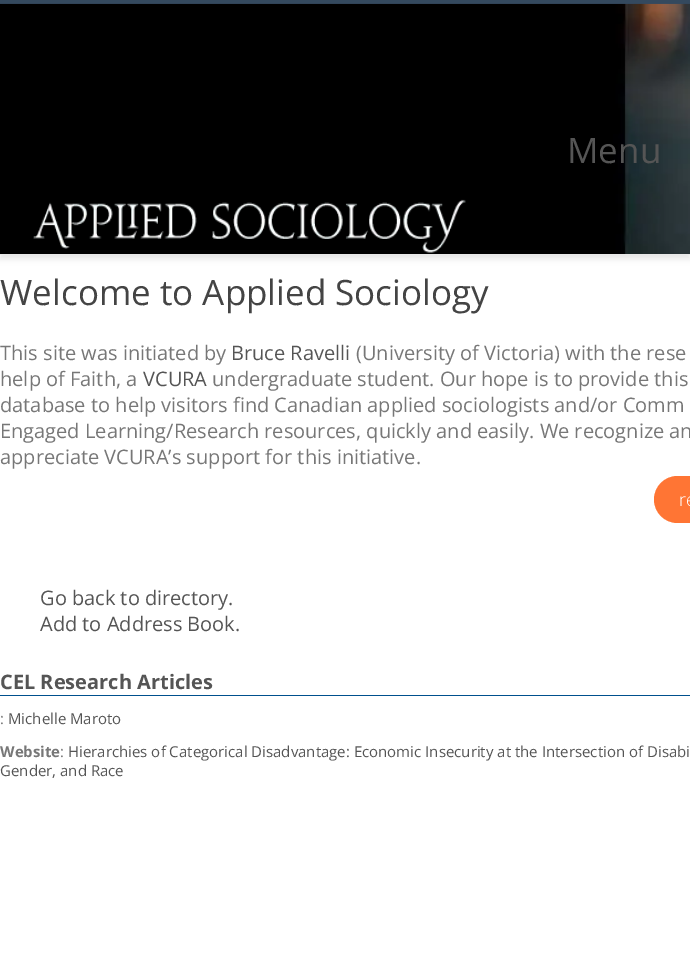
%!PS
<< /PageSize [690 978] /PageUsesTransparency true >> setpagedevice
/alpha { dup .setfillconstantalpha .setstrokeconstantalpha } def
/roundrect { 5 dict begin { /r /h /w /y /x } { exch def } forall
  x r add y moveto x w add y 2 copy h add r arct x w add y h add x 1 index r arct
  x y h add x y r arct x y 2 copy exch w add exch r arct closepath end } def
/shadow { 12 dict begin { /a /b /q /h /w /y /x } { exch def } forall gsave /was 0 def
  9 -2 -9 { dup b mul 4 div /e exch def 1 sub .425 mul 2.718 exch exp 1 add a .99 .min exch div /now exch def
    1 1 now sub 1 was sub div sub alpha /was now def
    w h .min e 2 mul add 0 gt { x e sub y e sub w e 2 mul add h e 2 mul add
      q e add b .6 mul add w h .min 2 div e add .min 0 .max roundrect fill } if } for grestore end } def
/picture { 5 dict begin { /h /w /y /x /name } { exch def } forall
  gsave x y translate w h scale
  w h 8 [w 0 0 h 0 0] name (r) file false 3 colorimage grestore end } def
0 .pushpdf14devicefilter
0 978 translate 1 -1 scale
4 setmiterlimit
1 setgray
0 0 690 978 rectfill
0.204 0.286 0.369 setrgbcolor
0 0 690 4 rectfill
0 setgray
0 8 690 251 0 3 0.1 shadow
(img1.rgb) 0 3 690 251 picture
0.91 setgray
0 254 690 1 rectfill
/OpenSans-Regular [35 0 0 -35 0 0] selectfont
0.333 setgray
567 163 moveto (Menu) show
(img2.rgb) 33 199 433 54 picture
0.267 setgray
0 305 moveto (Welcome to Applied Sociology) show
/OpenSans-Regular [20 0 0 -20 0 0] selectfont
0.467 setgray
0 360 moveto (This site was initiated by) show
0.333 setgray
231 360 moveto (Bruce Ravelli) show
0.467 setgray
356 360 moveto (\(University of Victoria\) with the rese) show
0 386 moveto (help of Faith, a) show
0.333 setgray
143 386 moveto (VCURA) show
0.467 setgray
212 386 moveto (undergraduate student. Our hope is to provide this) show
0 412 moveto (database to help visitors find Canadian applied sociologists and/or Comm) show
0 438 moveto (Engaged Learning/Research resources, quickly and easily. We recognize an) show
0 464 moveto (appreciate VCURA’s support for this initiative.) show
1 0.459 0.204 setrgbcolor
newpath 677.5 476 moveto 690 476 lineto 690 523 lineto 677.5 523 lineto 664.5 523 654 512.5 654 499.5 curveto 654 486.5 664.5 476 677.5 476 curveto closepath fill
/OpenSans-Light [18 0 0 -18 0 0] selectfont
1 setgray
679 506 moveto (re) show
/OpenSans-Regular [20 0 0 -20 0 0] selectfont
0.333 setgray
40 605 moveto (Go back to directory.) show
40 631 moveto (Add to Address Book.) show
0 0.314 0.553 setrgbcolor
0 695 690 1 rectfill
/OpenSans-Bold [20 0 0 -20 0 0] selectfont
0.333 setgray
0 689 moveto (CEL Research Articles) show
/OpenSans-Regular [15 0 0 -15 0 0] selectfont
0.467 setgray
0 724 moveto (:) show
0.333 setgray
8 724 moveto (Michelle Maroto) show
/OpenSans-Bold [15 0 0 -15 0 0] selectfont
0.467 setgray
0 757 moveto (Website) show
/OpenSans-Regular [15 0 0 -15 0 0] selectfont
60 757 moveto (:) show
0.333 setgray
68 757 moveto (Hierarchies of Categorical Disadvantage: Economic Insecurity at the Intersection of Disabi) show
0 776 moveto (Gender, and Race) show
.poppdf14devicefilter showpage
